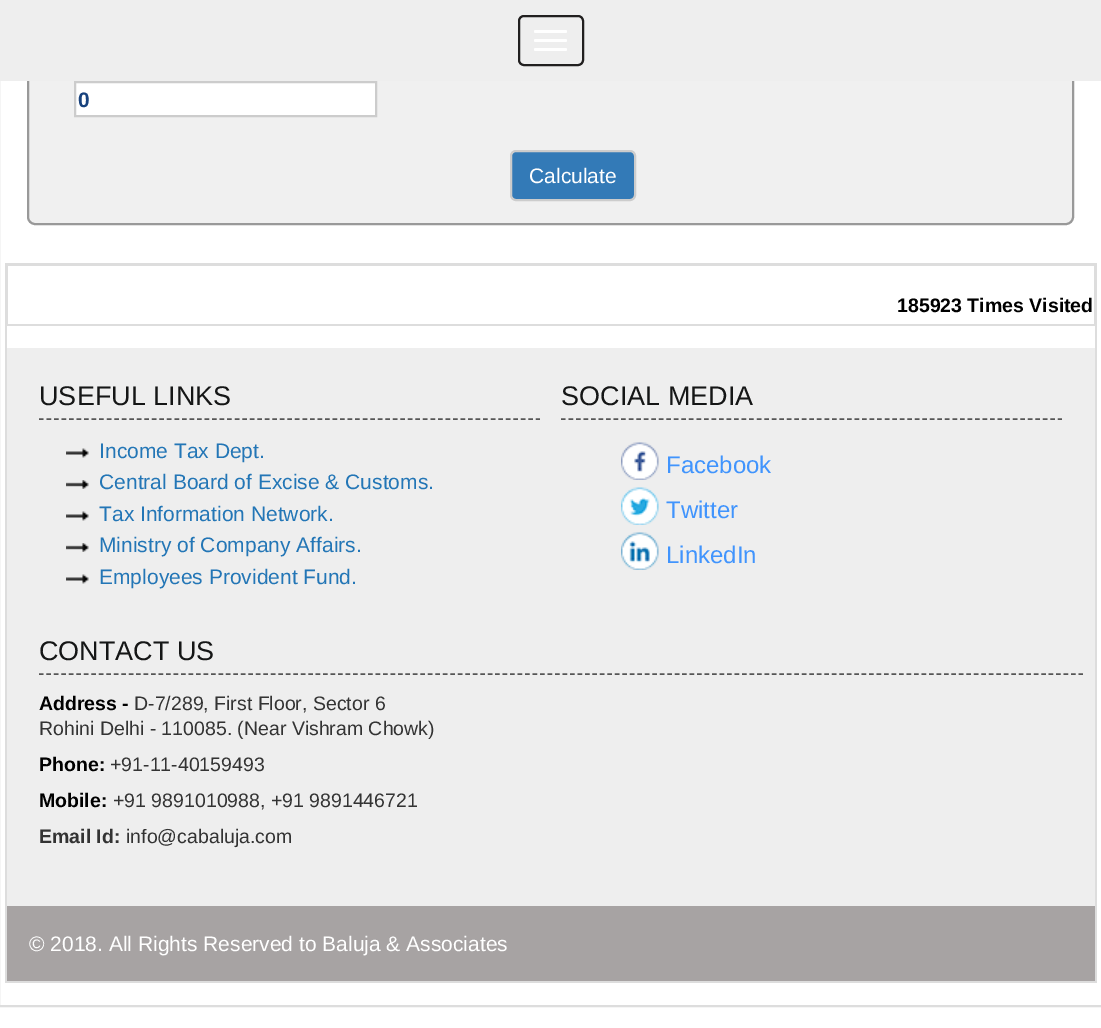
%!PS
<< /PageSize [1101 1028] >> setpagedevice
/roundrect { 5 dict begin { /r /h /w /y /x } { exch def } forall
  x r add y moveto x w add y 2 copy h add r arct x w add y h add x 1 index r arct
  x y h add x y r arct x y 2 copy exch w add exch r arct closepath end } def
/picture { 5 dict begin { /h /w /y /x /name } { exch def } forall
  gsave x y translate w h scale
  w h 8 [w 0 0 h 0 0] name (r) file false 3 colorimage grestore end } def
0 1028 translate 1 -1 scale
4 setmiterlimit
1 setgray
0 0 1101 1028 rectfill
0.867 setgray
2 setlinewidth
-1 -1 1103 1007 rectstroke
0.941 setgray
28 -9 1045 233 7 roundrect gsave fill grestore
0.6 setgray
stroke
0.933 setgray
0 0 1101 81 rectfill
0.129 0.122 0.122 setrgbcolor
519 16 64 49 5 roundrect stroke
1 setgray
534 30 33 3 1.5 roundrect fill
534 39 33 3 1.5 roundrect fill
534 48 33 3 1.5 roundrect fill
newpath 75 82 moveto 376 82 lineto 376 116 lineto 75 116 lineto closepath gsave fill grestore
0.8 setgray
stroke
/LiberationSans-Bold [21 0 0 -21 0 0] selectfont
0.094 0.259 0.49 setrgbcolor
78 107 moveto (0) show
0.2 0.478 0.718 setrgbcolor
511 151 124 49 5 roundrect gsave fill grestore
0.8 setgray
stroke
/LiberationSans-Regular [21 0 0 -21 0 0] selectfont
1 setgray
529 183 moveto (Calculate) show
0.867 setgray
5 263 1092 1 rectfill
1095 263 2 720 rectfill
5 981 1092 2 rectfill
5 263 2 720 rectfill
6 264 1089 2 rectfill
1094 264 1 62 rectfill
6 324 1089 2 rectfill
7 264 1 62 rectfill
/LiberationSans-Bold [19.5 0 0 -19.5 0 0] selectfont
0 setgray
897 312 moveto (185923 Times Visited) show
0.933 setgray
7 348 1088 558 rectfill
0.333 setgray
1.5 setlinewidth
[4.5 3.03] 0 setdash
newpath 39 419 moveto 540 419 lineto stroke
/LiberationSans-Regular [27 0 0 -27 0 0] selectfont
0.082 0.086 0.086 setrgbcolor
39 405 moveto (USEFUL LINKS) show
(img1.rgb) 66 448 23 10 picture
/LiberationSans-Regular [21 0 0 -21 0 0] selectfont
0.137 0.463 0.714 setrgbcolor
99 458 moveto (Income Tax Dept.) show
(img2.rgb) 66 480 23 9 picture
99 489 moveto (Central Board of Excise & Customs.) show
(img1.rgb) 66 511 23 10 picture
99 521 moveto (Tax Information Network.) show
(img2.rgb) 66 543 23 9 picture
99 552 moveto (Ministry of Company Affairs.) show
(img1.rgb) 66 574 23 10 picture
99 584 moveto (Employees Provident Fund.) show
0.333 setgray
newpath 561 419 moveto 1062 419 lineto stroke
/LiberationSans-Regular [27 0 0 -27 0 0] selectfont
0.082 0.086 0.086 setrgbcolor
561 405 moveto (SOCIAL MEDIA) show
(img3.rgb) 621 442 38 38 picture
/LiberationSans-Regular [24 0 0 -24 0 0] selectfont
0.251 0.58 0.992 setrgbcolor
666 473 moveto (Facebook) show
(img4.rgb) 621 487 38 38 picture
666 518 moveto (Twitter) show
(img5.rgb) 621 532 38 38 picture
666 563 moveto (LinkedIn) show
0.333 setgray
[4.5 2.98] 0 setdash
newpath 39 674 moveto 1083 674 lineto stroke
/LiberationSans-Regular [27 0 0 -27 0 0] selectfont
0.082 0.086 0.086 setrgbcolor
39 660 moveto (CONTACT US) show
/LiberationSans-Bold [19.5 0 0 -19.5 0 0] selectfont
0 setgray
39 710 moveto (Address -) show
/LiberationSans-Regular [19.5 0 0 -19.5 0 0] selectfont
0.2 setgray
134 710 moveto (D-7/289, First Floor, Sector 6) show
39 735 moveto (Rohini Delhi - 110085. \(Near Vishram Chowk\)) show
/LiberationSans-Bold [19.5 0 0 -19.5 0 0] selectfont
0 setgray
39 771 moveto (Phone:) show
/LiberationSans-Regular [19.5 0 0 -19.5 0 0] selectfont
0.2 setgray
110 771 moveto (+91-11-40159493) show
/LiberationSans-Bold [19.5 0 0 -19.5 0 0] selectfont
0 setgray
39 807 moveto (Mobile:) show
/LiberationSans-Regular [19.5 0 0 -19.5 0 0] selectfont
0.2 setgray
113 807 moveto (+91 9891010988, +91 9891446721) show
/LiberationSans-Bold [19.5 0 0 -19.5 0 0] selectfont
39 843 moveto (Email Id:) show
/LiberationSans-Regular [19.5 0 0 -19.5 0 0] selectfont
126 843 moveto (info@cabaluja.com) show
0.655 0.639 0.639 setrgbcolor
7 906 1088 75 rectfill
/LiberationSans-Regular [21 0 0 -21 0 0] selectfont
1 setgray
29 951 moveto (© 2018. All Rights Reserved to Baluja & Associates) show
showpage
